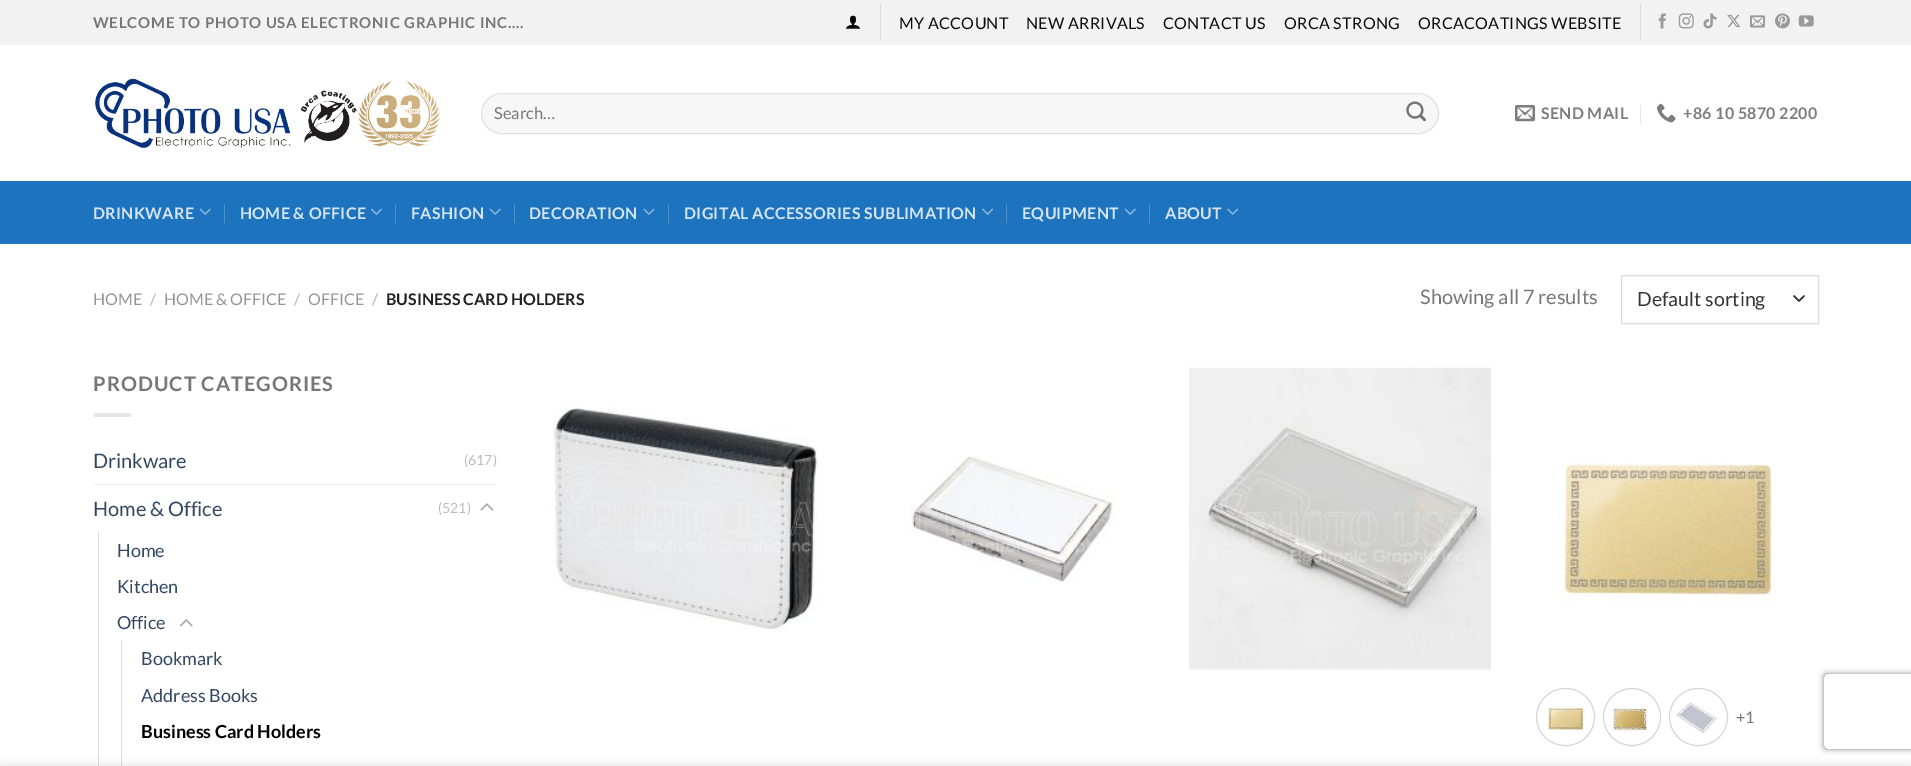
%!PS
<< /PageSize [1911 766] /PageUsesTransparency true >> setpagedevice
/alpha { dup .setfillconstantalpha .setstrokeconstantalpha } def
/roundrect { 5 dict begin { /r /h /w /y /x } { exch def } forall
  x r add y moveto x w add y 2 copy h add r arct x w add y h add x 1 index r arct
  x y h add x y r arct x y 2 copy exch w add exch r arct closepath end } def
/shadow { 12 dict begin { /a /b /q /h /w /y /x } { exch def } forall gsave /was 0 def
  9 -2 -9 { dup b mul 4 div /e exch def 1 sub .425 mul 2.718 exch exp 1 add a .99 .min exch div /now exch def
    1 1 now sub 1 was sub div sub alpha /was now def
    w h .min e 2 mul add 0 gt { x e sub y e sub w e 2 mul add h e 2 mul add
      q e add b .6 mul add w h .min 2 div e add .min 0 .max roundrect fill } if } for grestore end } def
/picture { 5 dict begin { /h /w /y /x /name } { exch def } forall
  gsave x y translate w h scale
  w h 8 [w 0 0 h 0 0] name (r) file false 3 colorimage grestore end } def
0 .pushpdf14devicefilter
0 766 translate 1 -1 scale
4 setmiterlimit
1 setgray
0 0 1911 766 rectfill
0.949 setgray
0 0 1911 45 rectfill
/Lato-Bold [15 0 0 -15 0 0] selectfont
0.467 setgray
93 28 moveto 0.75 0 (WELCOME TO PHOTO USA ELECTRONIC GRAPHIC INC....) ashow
(img1.rgb) 846 15 14 14 picture
0.855 setgray
880 4 1 37 rectfill
/Lato-Regular [16 0 0 -16 0 0] selectfont
0.039 setgray
899 29 moveto 0.3 0 (MY ACCOUNT) ashow
1026 29 moveto 0.3 0 (NEW ARRIVALS) ashow
1163 29 moveto 0.3 0 (CONTACT US) ashow
1284 29 moveto 0.3 0 (ORCA STRONG) ashow
1418 29 moveto 0.3 0 (ORCACOATINGS WEBSITE) ashow
0.855 setgray
1640 4 1 37 rectfill
(img2.rgb) 1658 13 8 16 picture
(img3.rgb) 1678 13 16 16 picture
(img4.rgb) 1703 13 14 16 picture
(img5.rgb) 1727 14 14 13 picture
(img6.rgb) 1750 15 15 13 picture
(img7.rgb) 1775 13 15 16 picture
(img8.rgb) 1798 15 16 12 picture
(img9.rgb) 95 78 345 70 picture
0.969 setgray
481 93 958 41 20.5 roundrect fill
0.09 alpha
0 setgray
481.5 93.5 957 40 20 roundrect stroke
/Lato-Regular [16.5 0 0 -16.5 0 0] selectfont
1 alpha
0.467 setgray
494 119 moveto (Search…) show
(img10.rgb) 1406 101 20 21 picture
(img11.rgb) 1515 105 20 17 picture
/Lato-Bold [16 0 0 -16 0 0] selectfont
0.49 setgray
1541 119 moveto 0.3 0 (SEND MAIL) ashow
0.902 setgray
1640 105 1 19 rectfill
(img12.rgb) 1656 103 20 20 picture
0.49 setgray
1683 119 moveto 0.3 0 (+86 10 5870 2200) ashow
0.118 0.451 0.745 setrgbcolor
0 181 1911 63 rectfill
0.153 0.451 0.718 setrgbcolor
94 181 1725 1 rectfill
0.824 0.89 0.949 setrgbcolor
93 219 moveto 0.3 0 (DRINKWARE) ashow
(img13.rgb) 199 208 12 7 picture
0.294 0.561 0.796 setrgbcolor
224 204 1 19 rectfill
0.824 0.89 0.949 setrgbcolor
240 219 moveto 0.3 0 (HOME & OFFICE) ashow
(img14.rgb) 371 208 11 7 picture
0.294 0.561 0.796 setrgbcolor
395 204 1 19 rectfill
0.824 0.89 0.949 setrgbcolor
411 219 moveto 0.3 0 (FASHION) ashow
(img13.rgb) 489 208 12 7 picture
0.294 0.561 0.796 setrgbcolor
514 204 1 19 rectfill
0.824 0.89 0.949 setrgbcolor
529 219 moveto 0.3 0 (DECORATION) ashow
(img15.rgb) 643 208 12 7 picture
0.294 0.561 0.796 setrgbcolor
668 204 1 19 rectfill
0.824 0.89 0.949 setrgbcolor
684 219 moveto 0.3 0 (DIGITAL ACCESSORIES SUBLIMATION) ashow
(img16.rgb) 982 208 12 7 picture
0.294 0.561 0.796 setrgbcolor
1006 204 1 19 rectfill
0.824 0.89 0.949 setrgbcolor
1022 219 moveto 0.3 0 (EQUIPMENT) ashow
(img13.rgb) 1124 208 12 7 picture
0.294 0.561 0.796 setrgbcolor
1149 204 1 19 rectfill
0.824 0.89 0.949 setrgbcolor
1165 219 moveto 0.3 0 (ABOUT) ashow
(img16.rgb) 1227 208 12 7 picture
/Lato-Regular [16 0 0 -16 0 0] selectfont
0.58 setgray
93 305 moveto (HOME) show
0.698 setgray
150 305 moveto (/) show
0.58 setgray
164 305 moveto (HOME & OFFICE) show
0.698 setgray
294 305 moveto (/) show
0.58 setgray
308 305 moveto (OFFICE) show
0.698 setgray
372 305 moveto (/) show
/Lato-Bold [16 0 0 -16 0 0] selectfont
0.133 setgray
386 305 moveto (BUSINESS CARD HOLDERS) show
/Lato-Regular [20 0 0 -20 0 0] selectfont
0.467 setgray
1420 304 moveto (Showing all 7 results) show
0.2 setgray
1.7 setlinewidth
1 setlinecap
1 setlinejoin
newpath 1794 296 moveto 1799 301 lineto 1804 296 lineto stroke
0.867 setgray
1 setlinewidth
0 setlinecap
0 setlinejoin
1621.5 275.5 197 48 rectstroke
/Lato-Regular [19.5 0 0 -19.5 0 0] selectfont
0.2 setgray
1637 306 moveto (Default sorting) show
/Lato-Bold [20 0 0 -20 0 0] selectfont
0.467 setgray
93 391 moveto 1 0 (PRODUCT CATEGORIES) ashow
0.902 setgray
94 413 37 4 rectfill
/Lato-Regular [20 0 0 -20 0 0] selectfont
0.2 0.282 0.384 setrgbcolor
93 468 moveto (Drinkware) show
/Lato-Regular [14 0 0 -14 0 0] selectfont
0.733 setgray
464 465 moveto (\(617\)) show
0.925 setgray
94 484 402 1 rectfill
/Lato-Regular [20 0 0 -20 0 0] selectfont
0.2 0.282 0.384 setrgbcolor
93 516 moveto (Home & Office) show
/Lato-Regular [14 0 0 -14 0 0] selectfont
0.733 setgray
438 513 moveto (\(521\)) show
(img17.rgb) 480 503 14 8 picture
0.867 setgray
98 531 1 235 rectfill
/Lato-Regular [18 0 0 -18 0 0] selectfont
0.2 0.282 0.384 setrgbcolor
117 557 moveto (Home) show
117 593 moveto (Kitchen) show
117 629 moveto (Office) show
(img18.rgb) 179 619 14 8 picture
0.867 setgray
121 640 1 126 rectfill
0.2 0.282 0.384 setrgbcolor
141 665 moveto (Bookmark) show
141 702 moveto (Address Books) show
/Lato-Bold [18 0 0 -18 0 0] selectfont
0 setgray
141 738 moveto (Business Card Holders) show
(img19.rgb) 553 407 265 225 picture
(img20.rgb) 910 456 206 126 picture
(img21.rgb) 1189 367 302 303 picture
(img22.rgb) 1554 461 218 142 picture
0.835 setgray
1536.5 688.5 58 57 28.5 roundrect stroke
(img23.rgb) 1548 707 40 25 picture
newpath 1632 717 28.5 0 360 arc closepath stroke
(img24.rgb) 1608 707 40 25 picture
1669.5 688.5 58 57 28.5 roundrect stroke
(img25.rgb) 1676 702 41 31 picture
/Lato-Regular [16 0 0 -16 0 0] selectfont
0.467 setgray
1736 723 moveto (+1) show
gsave
newpath 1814 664 moveto 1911 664 lineto 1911 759 lineto 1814 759 lineto closepath 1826.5 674 moveto 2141.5 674 lineto 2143 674 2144 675 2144 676.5 curveto 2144 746.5 lineto 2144 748 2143 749 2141.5 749 curveto 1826.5 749 lineto 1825 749 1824 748 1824 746.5 curveto 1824 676.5 lineto 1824 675 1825 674 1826.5 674 curveto closepath eoclip newpath
0.502 setgray
1824 674 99 75 2.5 3 1 shadow
grestore
0 setgray
0 766 1911 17 0 5.5 0.14 shadow
.poppdf14devicefilter showpage
